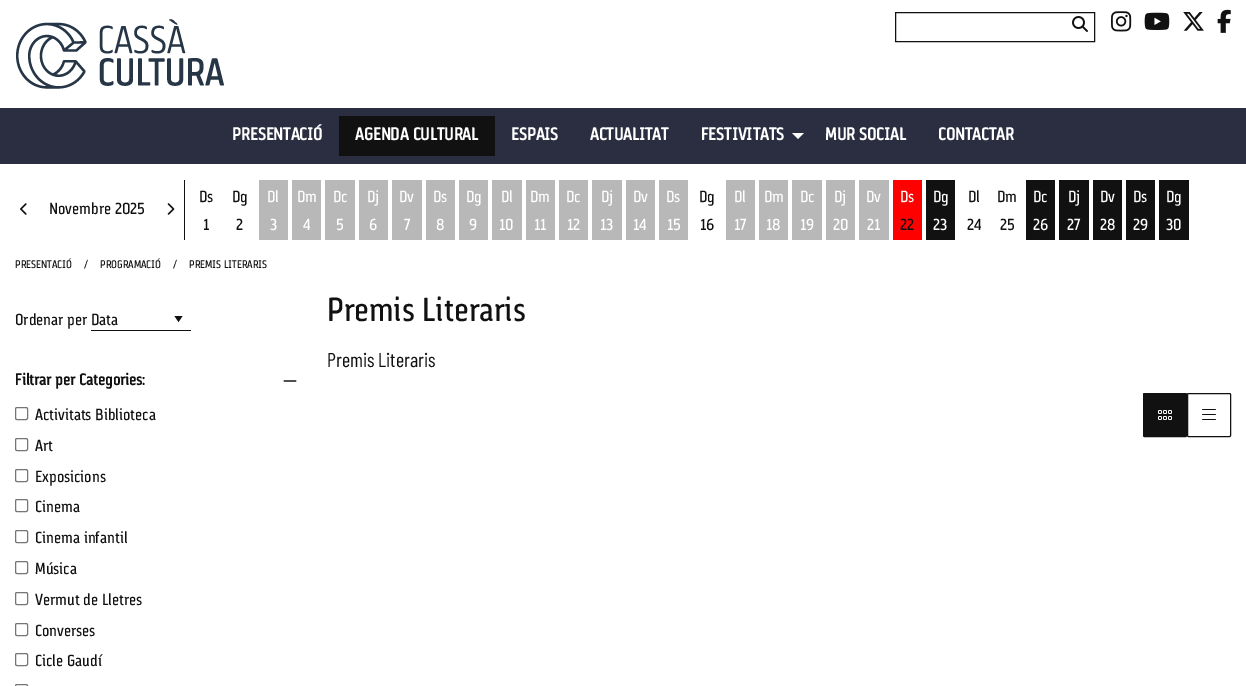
%!PS
<< /PageSize [1246 686] >> setpagedevice
/roundrect { 5 dict begin { /r /h /w /y /x } { exch def } forall
  x r add y moveto x w add y 2 copy h add r arct x w add y h add x 1 index r arct
  x y h add x y r arct x y 2 copy exch w add exch r arct closepath end } def
/picture { 5 dict begin { /h /w /y /x /name } { exch def } forall
  gsave x y translate w h scale
  w h 8 [w 0 0 h 0 0] name (r) file false 3 colorimage grestore end } def
0 686 translate 1 -1 scale
4 setmiterlimit
1 setgray
0 0 1246 686 rectfill
(img1.rgb) 16 19 208 70 picture
0.067 setgray
895.5 12.5 199 29 rectstroke
(img2.rgb) 1072 16 16 16 picture
(img3.rgb) 1111 11 21 21 picture
(img4.rgb) 1144 12 26 18 picture
(img5.rgb) 1183 12 21 19 picture
(img6.rgb) 1217 9 14 24 picture
0.169 0.176 0.251 setrgbcolor
0 108 1246 56 rectfill
/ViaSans-Bold [17.5 0 0 -17.5 0 0] selectfont
1 setgray
232 140 moveto (PRESENTACIÓ) show
0.067 setgray
339 116 156 40 rectfill
1 setgray
355 140 moveto (AGENDA CULTURAL) show
511 140 moveto (ESPAIS) show
590 140 moveto (ACTUALITAT) show
701 140 moveto (FESTIVITATS) show
newpath 792 133 moveto 804 133 lineto 798 139 lineto closepath fill
825 140 moveto (MUR SOCIAL) show
938 140 moveto (CONTACTAR) show
0.067 setgray
184 180 1 60 rectfill
(img7.rgb) 20 203 7 12 picture
/ViaSans-Regular [16 0 0 -16 0 0] selectfont
49 214 moveto (Novembre 2025) show
(img8.rgb) 167 203 8 12 picture
199 202 moveto (Ds) show
203 230 moveto (1) show
232 202 moveto (Dg) show
236 230 moveto (2) show
0.722 setgray
259 180 29 60 rectfill
1 setgray
267 202 moveto (Dl) show
270 230 moveto (3) show
0.722 setgray
292 180 29 60 rectfill
1 setgray
297 202 moveto (Dm) show
303 230 moveto (4) show
0.722 setgray
325 180 30 60 rectfill
1 setgray
333 202 moveto (Dc) show
336 230 moveto (5) show
0.722 setgray
359 180 29 60 rectfill
1 setgray
367 202 moveto (Dj) show
369 230 moveto (6) show
0.722 setgray
392 180 30 60 rectfill
1 setgray
399 202 moveto (Dv) show
404 230 moveto (7) show
0.722 setgray
426 180 29 60 rectfill
1 setgray
433 202 moveto (Ds) show
436 230 moveto (8) show
0.722 setgray
459 180 29 60 rectfill
1 setgray
466 202 moveto (Dg) show
469 230 moveto (9) show
0.722 setgray
492 180 30 60 rectfill
1 setgray
501 202 moveto (Dl) show
499 230 moveto (10) show
0.722 setgray
526 180 29 60 rectfill
1 setgray
530 202 moveto (Dm) show
534 230 moveto (11) show
0.722 setgray
559 180 29 60 rectfill
1 setgray
566 202 moveto (Dc) show
567 230 moveto (12) show
0.722 setgray
592 180 30 60 rectfill
1 setgray
601 202 moveto (Dj) show
600 230 moveto (13) show
0.722 setgray
626 180 29 60 rectfill
1 setgray
633 202 moveto (Dv) show
633 230 moveto (14) show
0.722 setgray
659 180 29 60 rectfill
1 setgray
666 202 moveto (Ds) show
667 230 moveto (15) show
0.067 setgray
699 202 moveto (Dg) show
700 230 moveto (16) show
0.722 setgray
726 180 29 60 rectfill
1 setgray
734 202 moveto (Dl) show
734 230 moveto (17) show
0.722 setgray
759 180 29 60 rectfill
1 setgray
764 202 moveto (Dm) show
766 230 moveto (18) show
0.722 setgray
792 180 30 60 rectfill
1 setgray
800 202 moveto (Dc) show
800 230 moveto (19) show
0.722 setgray
826 180 29 60 rectfill
1 setgray
834 202 moveto (Dj) show
833 230 moveto (20) show
0.722 setgray
859 180 30 60 rectfill
1 setgray
866 202 moveto (Dv) show
867 230 moveto (21) show
1 0 0 setrgbcolor
893 180 29 60 rectfill
1 setgray
900 202 moveto (Ds) show
0.067 setgray
900 230 moveto (22) show
926 180 29 60 rectfill
1 setgray
933 202 moveto (Dg) show
933 230 moveto (23) show
0.067 setgray
968 202 moveto (Dl) show
967 230 moveto (24) show
997 202 moveto (Dm) show
1000 230 moveto (25) show
1026 180 29 60 rectfill
1 setgray
1033 202 moveto (Dc) show
1033 230 moveto (26) show
0.067 setgray
1059 180 30 60 rectfill
1 setgray
1068 202 moveto (Dj) show
1067 230 moveto (27) show
0.067 setgray
1093 180 29 60 rectfill
1 setgray
1100 202 moveto (Dv) show
1100 230 moveto (28) show
0.067 setgray
1126 180 29 60 rectfill
1 setgray
1133 202 moveto (Ds) show
1133 230 moveto (29) show
0.067 setgray
1159 180 30 60 rectfill
1 setgray
1166 202 moveto (Dg) show
1166 230 moveto (30) show
/ViaSans-Regular [11 0 0 -11 0 0] selectfont
0.067 setgray
15 268 moveto (PRESENTACIÓ) show
84 268 moveto (/) show
100 268 moveto (PROGRAMACIÓ) show
173 268 moveto (/) show
189 268 moveto (PREMIS LITERARIS) show
/ViaSans-Regular [16 0 0 -16 0 0] selectfont
15 325 moveto (Ordenar per Data) show
newpath 174.5 316 moveto 182.5 316 lineto 178.5 322 lineto closepath fill
91 330 100 1 rectfill
/ViaSans-Bold [16 0 0 -16 0 0] selectfont
15 385 moveto (Filtrar per Categories:) show
(img9.rgb) 283 380 14 2 picture
0.463 setgray
15.5 407.5 12 12 1.5 roundrect stroke
/ViaSans-Regular [16 0 0 -16 0 0] selectfont
0.067 setgray
35 420 moveto (Activitats Biblioteca) show
0.463 setgray
15.5 438.5 12 12 1.5 roundrect stroke
0.067 setgray
35 451 moveto (Art) show
0.463 setgray
15.5 469.5 12 12 1.5 roundrect stroke
0.067 setgray
35 482 moveto (Exposicions) show
0.463 setgray
15.5 499.5 12 12 1.5 roundrect stroke
0.067 setgray
35 512 moveto (Cinema) show
0.463 setgray
15.5 530.5 12 12 1.5 roundrect stroke
0.067 setgray
35 543 moveto (Cinema infantil) show
0.463 setgray
15.5 561.5 12 12 1.5 roundrect stroke
0.067 setgray
35 574 moveto (Música) show
0.463 setgray
15.5 592.5 12 12 1.5 roundrect stroke
0.067 setgray
35 605 moveto (Vermut de Lletres) show
0.463 setgray
15.5 623.5 12 12 1.5 roundrect stroke
0.067 setgray
35 636 moveto (Converses) show
0.463 setgray
15.5 653.5 12 12 1.5 roundrect stroke
0.067 setgray
35 666 moveto (Cicle Gaudí) show
0.463 setgray
15.5 684.5 12 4 1.5 roundrect stroke
/ViaSans-Regular [33.25 0 0 -33.25 0 0] selectfont
0.067 setgray
327 321 moveto (Premis Literaris) show
/BarlowCondensed-Regular [20 0 0 -20 0 0] selectfont
327 367 moveto (Premis Literaris) show
1143.5 393.5 43 43 1 roundrect gsave fill grestore
stroke
(img10.rgb) 1158 410 14 10 picture
1187.5 393.5 43 43 1 roundrect stroke
(img11.rgb) 1202 409 14 11 picture
showpage
